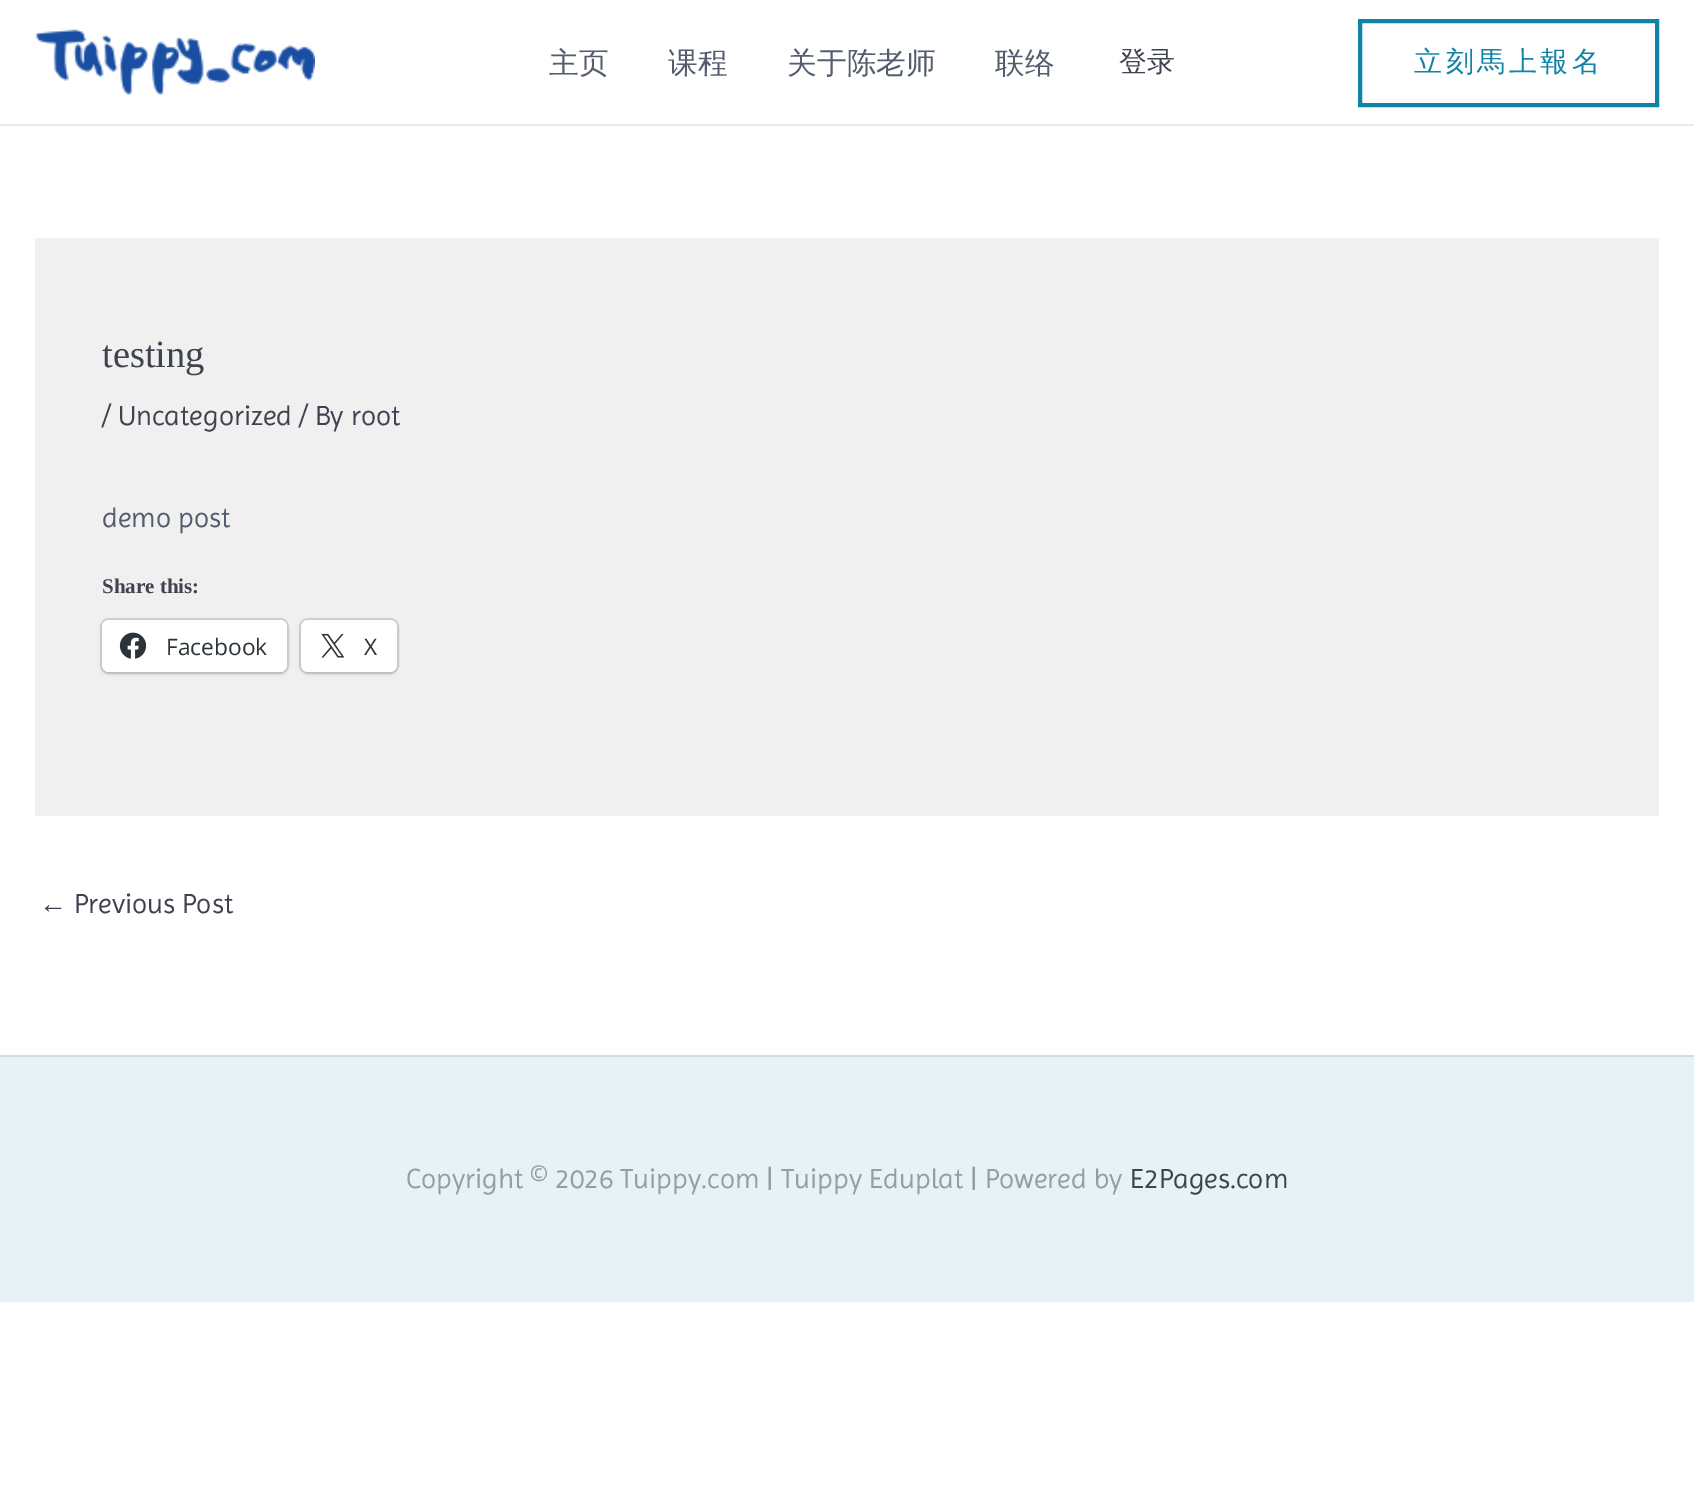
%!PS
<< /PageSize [1694 1505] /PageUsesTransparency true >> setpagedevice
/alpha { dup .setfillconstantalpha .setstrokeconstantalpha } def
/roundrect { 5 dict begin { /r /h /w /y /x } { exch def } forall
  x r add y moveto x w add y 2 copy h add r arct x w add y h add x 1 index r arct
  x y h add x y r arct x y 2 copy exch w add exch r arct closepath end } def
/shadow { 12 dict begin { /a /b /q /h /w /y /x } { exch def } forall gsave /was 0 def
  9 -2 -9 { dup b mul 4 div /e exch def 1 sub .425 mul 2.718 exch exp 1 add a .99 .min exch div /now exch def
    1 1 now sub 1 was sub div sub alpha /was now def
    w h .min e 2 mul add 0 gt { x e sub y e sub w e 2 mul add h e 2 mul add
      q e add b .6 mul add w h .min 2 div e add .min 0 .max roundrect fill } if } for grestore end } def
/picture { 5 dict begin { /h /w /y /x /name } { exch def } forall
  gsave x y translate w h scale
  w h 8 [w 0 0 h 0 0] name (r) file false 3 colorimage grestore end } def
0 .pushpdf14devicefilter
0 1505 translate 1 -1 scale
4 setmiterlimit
1 setgray
0 0 1694 1505 rectfill
0.918 setgray
0 124 1694 2 rectfill
(img1.rgb) 35 29 280 66 picture
/WenQuanYiZenHei-Medium [29.75 0 0 -29.75 0 0] selectfont
0.333 0.361 0.427 setrgbcolor
549 73 moveto (主页) show
668 73 moveto (课程) show
787 73 moveto (关于陈老师) show
995 73 moveto (联络) show
/WenQuanYiZenHei-Medium [28 0 0 -28 0 0] selectfont
0.247 0.263 0.31 setrgbcolor
1119 71 moveto (登录) show
0.071 0.51 0.647 setrgbcolor
4 setlinewidth
1360 21 297 84 rectstroke
1414 71 moveto 3.5 0 (立刻馬上報名) ashow
0.941 setgray
35 238 1624 578 rectfill
/LiberationSerif-Regular [38.5 0 0 -38.5 0 0] selectfont
0.247 0.263 0.31 setrgbcolor
102 367 moveto (testing) show
/Imprima-Regular [28 0 0 -28 0 0] selectfont
102 425 moveto (/ Uncategorized / By root) show
0.333 0.361 0.427 setrgbcolor
102 527 moveto (demo post) show
/LiberationSerif-Bold [21 0 0 -21 0 0] selectfont
0.247 0.263 0.31 setrgbcolor
102 593 moveto (Share this:) show
0.827 setgray
2 setlinewidth
101 619 187 54 8 roundrect stroke
0 setgray
102 621 185 53 7 2 0.12 shadow
1 setgray
102 620 185 52 7 roundrect fill
(img2.rgb) 119 632 28 27 picture
/OpenSans-Regular [22.75 0 0 -22.75 0 0] selectfont
0.173 0.2 0.22 setrgbcolor
166 655 moveto (Facebook) show
0.827 setgray
300 619 98 54 8 roundrect stroke
0 setgray
301 621 96 53 7 2 0.12 shadow
1 setgray
301 620 96 52 7 roundrect fill
(img3.rgb) 321 633 24 25 picture
0.173 0.2 0.22 setrgbcolor
364 655 moveto (X) show
/LiberationSans-Regular [28 0 0 -28 0 0] selectfont
0.247 0.263 0.31 setrgbcolor
39 913 moveto (←) show
/Imprima-Regular [28 0 0 -28 0 0] selectfont
74 913 moveto (Previous Post) show
0.906 0.949 0.965 setrgbcolor
0 1057 1694 245 rectfill
0.824 0.863 0.875 setrgbcolor
0 1055 1694 2 rectfill
0.588 0.616 0.627 setrgbcolor
406 1188 moveto (Copyright © 2026 Tuippy.com | Tuippy Eduplat | Powered by) show
0.247 0.263 0.31 setrgbcolor
1130 1188 moveto (E2Pages.com) show
.poppdf14devicefilter showpage
